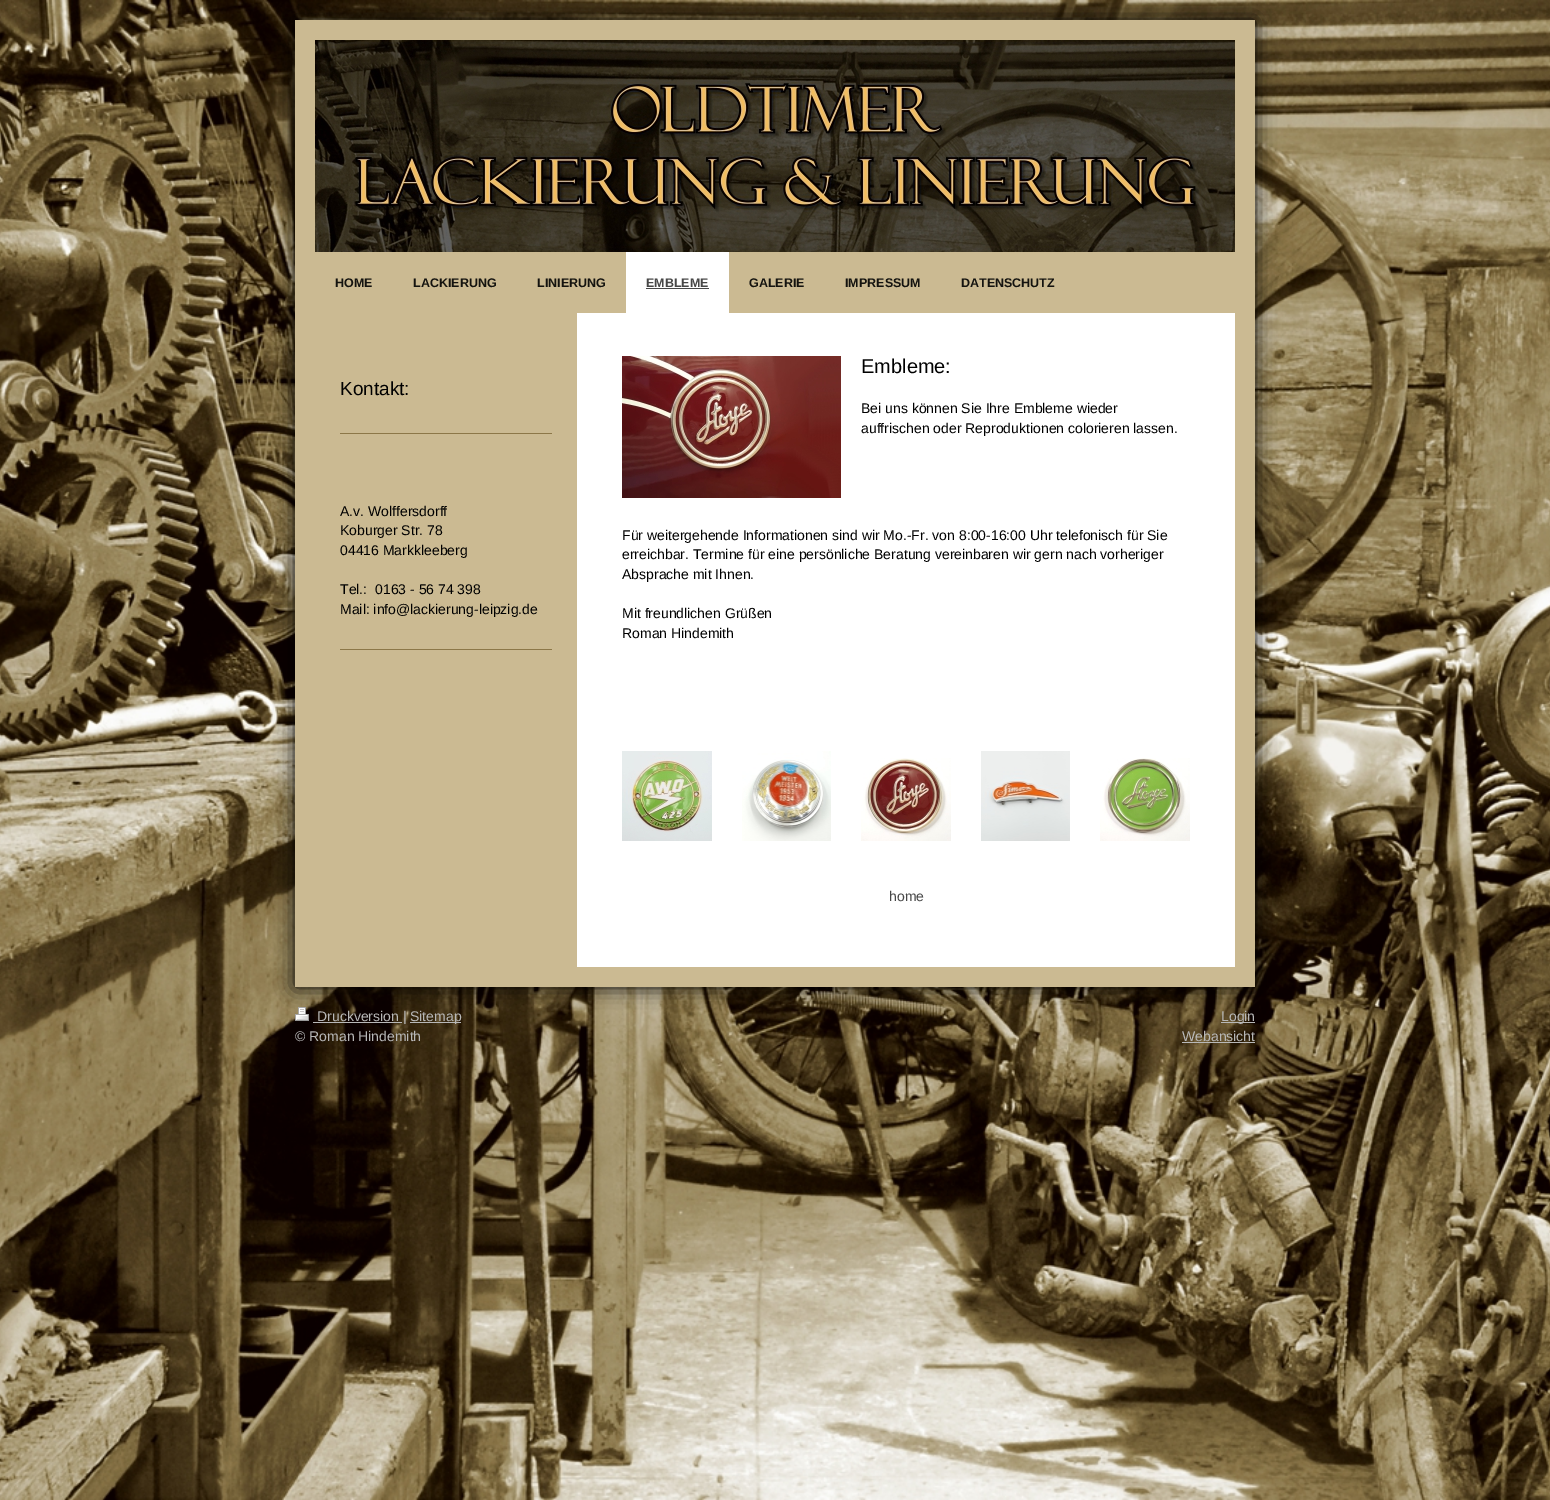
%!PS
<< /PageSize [1550 1500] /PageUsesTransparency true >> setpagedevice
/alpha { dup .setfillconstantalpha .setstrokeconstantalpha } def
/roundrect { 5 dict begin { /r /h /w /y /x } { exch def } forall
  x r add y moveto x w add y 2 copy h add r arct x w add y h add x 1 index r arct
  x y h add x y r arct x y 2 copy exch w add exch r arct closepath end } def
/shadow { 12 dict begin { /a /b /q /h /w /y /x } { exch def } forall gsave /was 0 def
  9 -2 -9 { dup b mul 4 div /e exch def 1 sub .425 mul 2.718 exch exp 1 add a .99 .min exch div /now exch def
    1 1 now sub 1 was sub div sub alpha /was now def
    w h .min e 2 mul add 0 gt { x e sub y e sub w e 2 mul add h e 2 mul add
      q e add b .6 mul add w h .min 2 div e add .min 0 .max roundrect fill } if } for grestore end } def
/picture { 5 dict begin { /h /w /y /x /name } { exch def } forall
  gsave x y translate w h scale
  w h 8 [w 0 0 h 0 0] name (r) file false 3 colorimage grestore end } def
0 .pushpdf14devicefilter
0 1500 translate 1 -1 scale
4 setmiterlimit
1 setgray
0 0 1550 1500 rectfill
(img1.rgb) 0 0 1550 1500 picture
0 setgray
295 20 960 967 0 10 1 shadow
0.796 0.729 0.573 setrgbcolor
295 20 960 967 rectfill
(img2.rgb) 315 40 920 212 picture
/LiberationSans-Bold [12.5 0 0 -12.5 0 0] selectfont
0.078 0.075 0.059 setrgbcolor
335 287 moveto (HOME) show
413 287 moveto (LACKIERUNG) show
537 287 moveto (LINIERUNG) show
1 setgray
626 252 103 61 rectfill
0.278 setgray
646 287 moveto (EMBLEME) show
646 288 63 1 rectfill
0.078 0.075 0.059 setrgbcolor
749 287 moveto (GALERIE) show
845 287 moveto (IMPRESSUM) show
961 287 moveto (DATENSCHUTZ) show
1 setgray
577 313 658 654 rectfill
/LiberationSans-Regular [19 0 0 -19 0 0] selectfont
0 setgray
340 395 moveto (Kontakt:) show
0.549 0.467 0.282 setrgbcolor
340 433 212 1 rectfill
/LiberationSans-Regular [14 0 0 -14 0 0] selectfont
0 setgray
340 516 moveto (A.v. Wolffersdorff) show
340 535 moveto (Koburger Str. 78) show
340 555 moveto (04416 Markkleeberg) show
340 594 moveto (Tel.:  0163 - 56 74 398) show
340 614 moveto (Mail: info@lackierung-leipzig.de) show
0.549 0.467 0.282 setrgbcolor
340 649 212 1 rectfill
(img3.rgb) 622 356 219 142 picture
/LiberationSans-Regular [20 0 0 -20 0 0] selectfont
0 setgray
861 373 moveto (Embleme:) show
/LiberationSans-Regular [14 0 0 -14 0 0] selectfont
861 413 moveto (Bei uns können Sie Ihre Embleme wieder) show
861 433 moveto (auffrischen oder Reproduktionen colorieren lassen.) show
622 540 moveto (Für weitergehende Informationen sind wir Mo.-Fr. von 8:00-16:00 Uhr telefonisch für Sie) show
622 559 moveto (erreichbar. Termine für eine persönliche Beratung vereinbaren wir gern nach vorheriger) show
622 579 moveto (Absprache mit Ihnen.) show
622 618 moveto (Mit freundlichen Grüßen) show
622 638 moveto (Roman Hindemith) show
(img4.rgb) 622 751 90 90 picture
(img5.rgb) 742 751 89 90 picture
(img6.rgb) 861 758 90 83 picture
(img7.rgb) 981 751 89 90 picture
(img8.rgb) 1100 758 90 83 picture
0.278 setgray
889 901 moveto (home) show
(img9.rgb) 295 1007 14 14 picture
0.722 setgray
313 1022 89 1 rectfill
317 1021 moveto (Druckversion |) show
410 1022 51 1 rectfill
410 1021 moveto (Sitemap) show
295 1041 moveto (© Roman Hindemith) show
1221 1022 34 1 rectfill
1221 1021 moveto (Login) show
1182 1041 moveto (Webansicht) show
1182 1042 73 1 rectfill
.poppdf14devicefilter showpage
